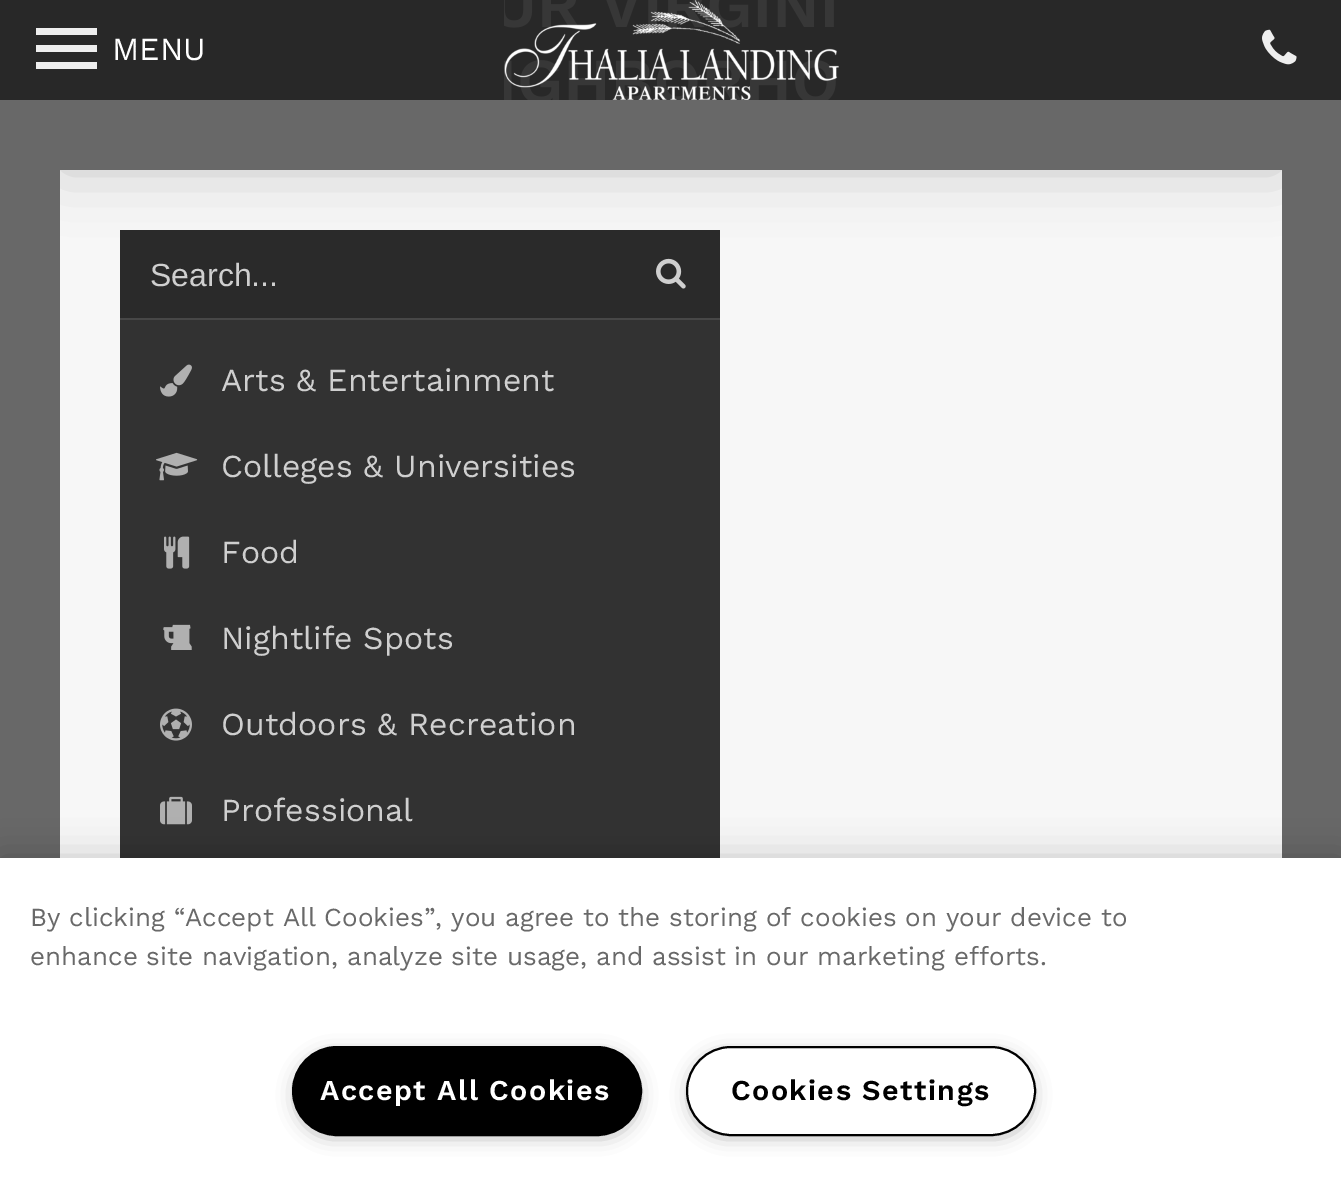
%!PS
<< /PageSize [1341 1188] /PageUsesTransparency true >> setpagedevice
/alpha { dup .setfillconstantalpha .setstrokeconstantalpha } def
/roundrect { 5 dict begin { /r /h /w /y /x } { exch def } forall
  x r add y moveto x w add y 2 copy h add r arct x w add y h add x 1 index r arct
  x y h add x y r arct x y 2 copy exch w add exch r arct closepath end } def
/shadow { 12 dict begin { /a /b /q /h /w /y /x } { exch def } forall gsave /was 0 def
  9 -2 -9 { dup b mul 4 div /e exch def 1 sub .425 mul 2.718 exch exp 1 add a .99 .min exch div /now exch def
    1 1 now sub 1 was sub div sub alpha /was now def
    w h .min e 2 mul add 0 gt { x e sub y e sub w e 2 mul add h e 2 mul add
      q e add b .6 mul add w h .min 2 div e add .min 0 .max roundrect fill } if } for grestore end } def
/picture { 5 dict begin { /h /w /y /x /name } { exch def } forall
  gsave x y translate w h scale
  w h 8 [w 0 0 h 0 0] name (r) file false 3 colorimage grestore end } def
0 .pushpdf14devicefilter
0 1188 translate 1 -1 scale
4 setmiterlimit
0.408 setgray
0 0 1341 1188 rectfill
0.969 setgray
60 170 1222 688 rectfill
gsave
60 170 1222 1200 rectclip
0 setgray
60 70 1222 100 0 30 0.2 shadow
grestore
0.9 alpha
0.129 setgray
0 0 1341 100 rectfill
1 alpha
0.933 setgray
newpath 36 69 moveto 97 69 lineto 97 62 lineto 36 62 lineto closepath 36 52 moveto 97 52 lineto 97 45 lineto 36 45 lineto closepath 36 28 moveto 36 35 lineto 97 35 lineto 97 28 lineto closepath fill
/WorkSans-Regular [32 0 0 -32 0 0] selectfont
1 setgray
112 60 moveto (MENU) show
(img1.rgb) 504 0 335 100 picture
(img2.rgb) 1262 29 35 36 picture
0.165 setgray
120 230 600 88 rectfill
0.278 setgray
120 318 600 2 rectfill
/LiberationSans-Regular [32 0 0 -32 0 0] selectfont
0.812 setgray
150 286 moveto (Search...) show
(img3.rgb) 656 258 30 31 picture
0.196 setgray
120 320 600 538 rectfill
(img4.rgb) 160 364 32 33 picture
/WorkSans-Regular [32 0 0 -32 0 0] selectfont
0.812 setgray
221 391 moveto (Arts & Entertainment) show
(img5.rgb) 156 452 42 29 picture
221 477 moveto (Colleges & Universities) show
(img6.rgb) 164 536 26 33 picture
221 563 moveto (Food) show
(img7.rgb) 163 624 29 26 picture
221 649 moveto (Nightlife Spots) show
(img8.rgb) 160 708 32 33 picture
221 735 moveto (Outdoors & Recreation) show
(img9.rgb) 160 796 32 29 picture
221 821 moveto (Professional) show
0 setgray
0 858 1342 330 0 18 0.2 shadow
1 setgray
0 858 1341 330 rectfill
/WorkSans-Regular [26 0 0 -26 0 0] selectfont
0.412 setgray
30 926 moveto (By clicking “Accept All Cookies”, you agree to the storing of cookies on your device to) show
30 965 moveto (enhance site navigation, analyze site usage, and assist in our marketing efforts.) show
0.6 setgray
298 1056 338 78 39 10 1 shadow
0 setgray
293 1047 348 88 44 roundrect gsave fill grestore
2 setlinewidth
stroke
/WorkSans-SemiBold [28.75 0 0 -28.75 0 0] selectfont
1 setgray
320 1100 moveto 1.4 0 (Accept All Cookies) ashow
0.6 setgray
692 1056 338 78 39 10 1 shadow
1 setgray
687 1047 348 88 44 roundrect gsave fill grestore
0 setgray
stroke
731 1100 moveto 1.4 0 (Cookies Settings) ashow
.poppdf14devicefilter showpage
